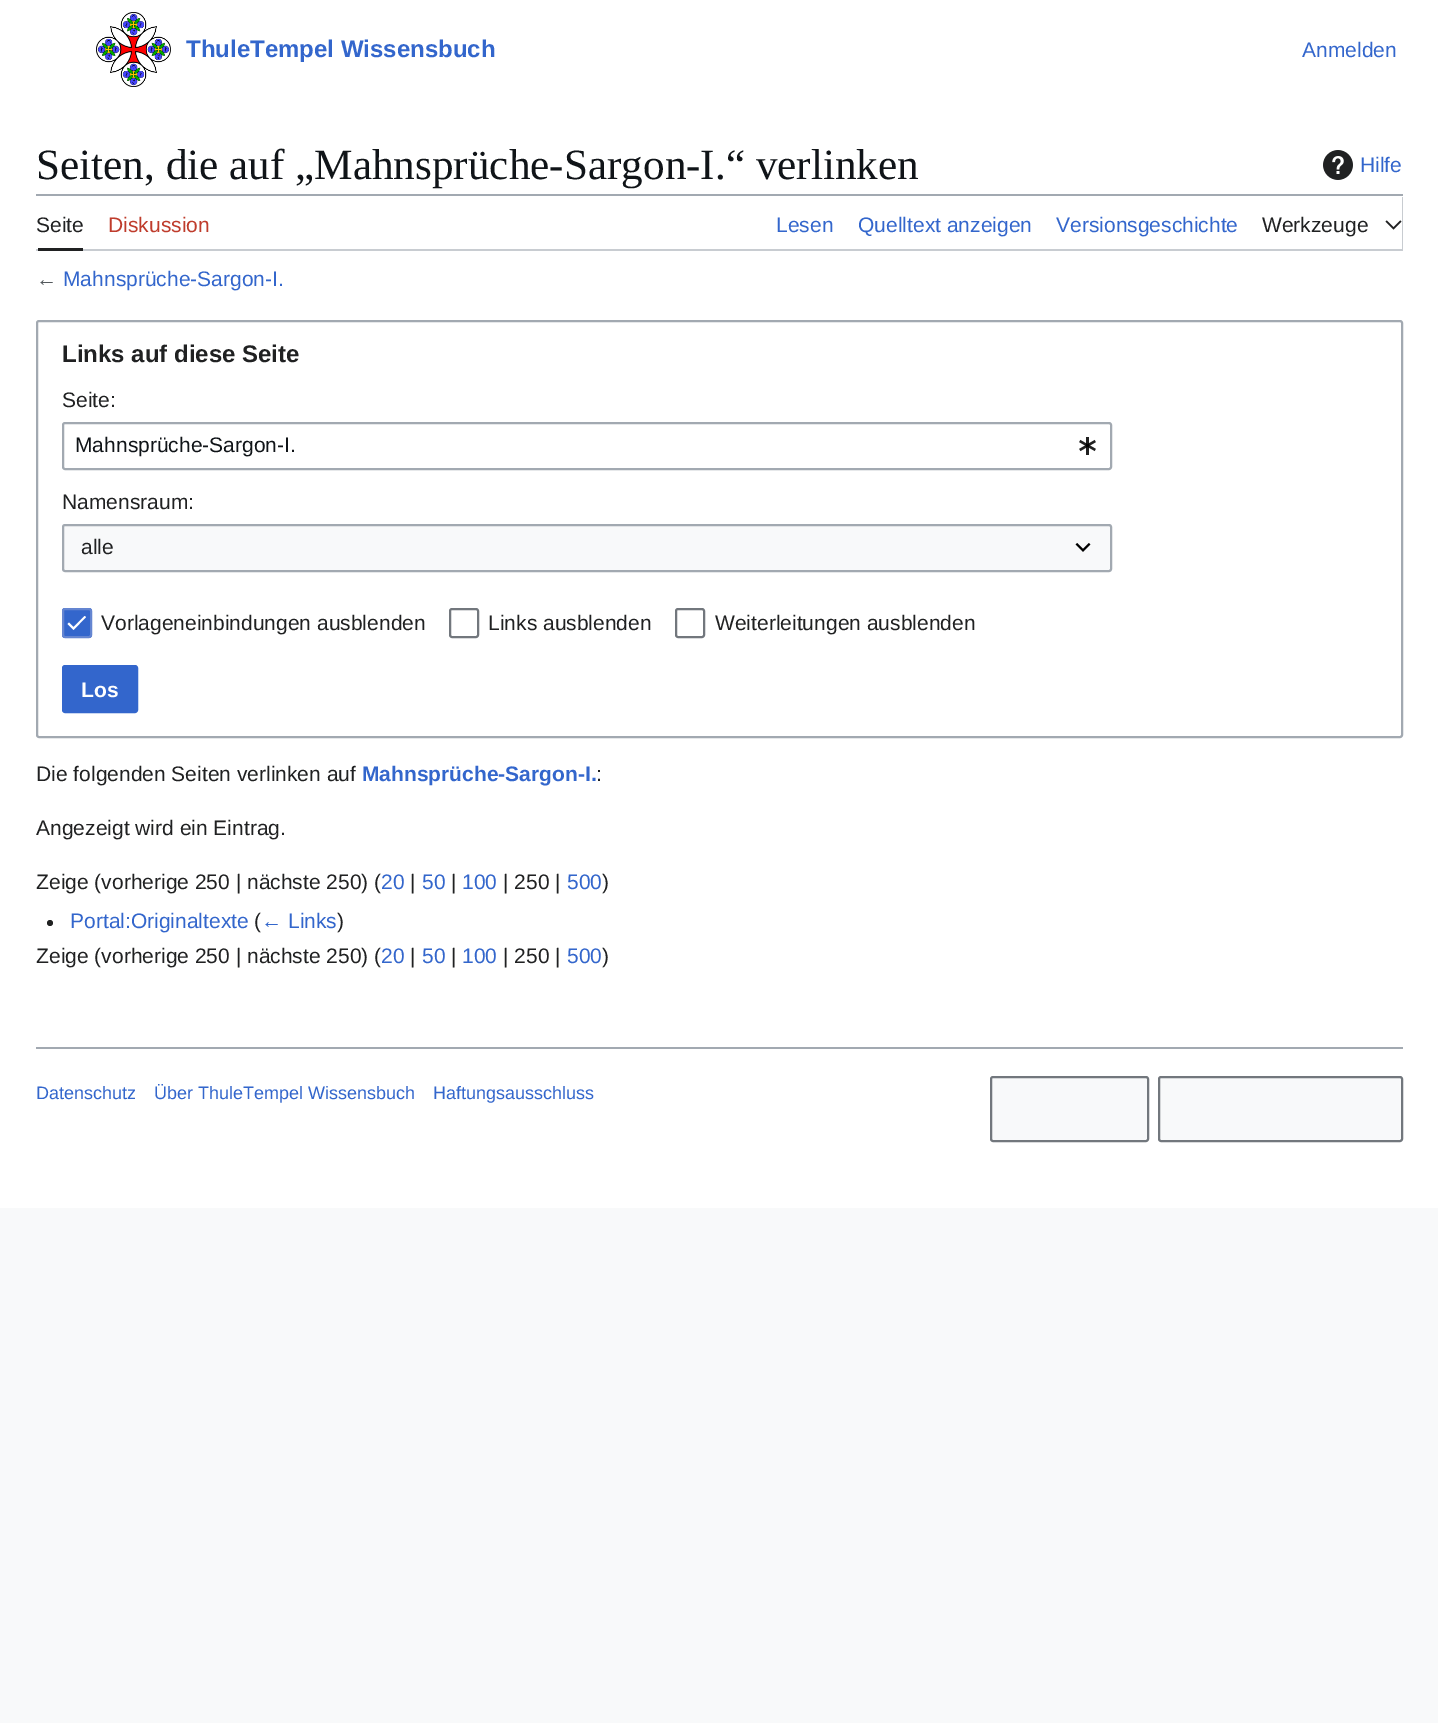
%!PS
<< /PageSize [1438 1723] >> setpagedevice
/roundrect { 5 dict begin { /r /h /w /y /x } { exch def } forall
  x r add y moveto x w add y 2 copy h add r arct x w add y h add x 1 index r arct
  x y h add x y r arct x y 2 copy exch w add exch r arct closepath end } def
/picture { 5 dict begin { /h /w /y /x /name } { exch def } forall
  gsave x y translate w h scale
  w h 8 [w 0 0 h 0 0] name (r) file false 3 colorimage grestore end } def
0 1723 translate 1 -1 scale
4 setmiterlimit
0.973 0.976 0.98 setrgbcolor
0 0 1438 1723 rectfill
1 setgray
0 0 1438 1208 rectfill
(img1.rgb) 96 12 75 75 picture
/LiberationSans-Bold [24 0 0 -24 0 0] selectfont
0.2 0.4 0.8 setrgbcolor
186 57 moveto (ThuleTempel Wissensbuch) show
/LiberationSans-Regular [21 0 0 -21 0 0] selectfont
1302 57 moveto (Anmelden) show
/LiberationSerif-Regular [43.2 0 0 -43.2 0 0] selectfont
0.063 0.078 0.094 setrgbcolor
36 179 moveto (Seiten, die auf „Mahnsprüche-Sargon-I.“ verlinken) show
(img2.rgb) 1323 150 30 30 picture
/LiberationSans-Regular [21 0 0 -21 0 0] selectfont
0.2 0.4 0.8 setrgbcolor
1360 172 moveto (Hilfe) show
0.635 0.663 0.694 setrgbcolor
36 194 1367 2 rectfill
0.784 0.8 0.82 setrgbcolor
newpath 36 249 moveto 36 251 lineto 1403 251 lineto 1403 197 lineto 1402 197 lineto 1402 249 lineto closepath fill
0.125 0.129 0.133 setrgbcolor
38 248 45 3 rectfill
36 232 moveto (Seite) show
0.749 0.235 0.173 setrgbcolor
108 232 moveto (Diskussion) show
0.2 0.4 0.8 setrgbcolor
776 232 moveto (Lesen) show
858 232 moveto (Quelltext anzeigen) show
1056 232 moveto (Versionsgeschichte) show
0.125 0.129 0.133 setrgbcolor
1262 232 moveto (Werkzeuge) show
(img3.rgb) 1385 220 17 10 picture
0.329 0.349 0.365 setrgbcolor
36 286 moveto (←) show
0.2 0.4 0.8 setrgbcolor
63 286 moveto (Mahnsprüche-Sargon-I.) show
0.635 0.663 0.694 setrgbcolor
2 setlinewidth
37 321 1365 416 2 roundrect stroke
/LiberationSans-Bold [24 0 0 -24 0 0] selectfont
0.125 0.129 0.133 setrgbcolor
62 362 moveto (Links auf diese Seite) show
/LiberationSans-Regular [21 0 0 -21 0 0] selectfont
62 407 moveto (Seite:) show
0.635 0.663 0.694 setrgbcolor
63 423 1048 46 2 roundrect stroke
0.063 0.078 0.094 setrgbcolor
75 452 moveto (Mahnsprüche-Sargon-I.) show
(img4.rgb) 1079 437 17 18 picture
0.125 0.129 0.133 setrgbcolor
62 509 moveto (Namensraum:) show
0.973 0.976 0.98 setrgbcolor
62 524 1050 48 rectfill
(img5.rgb) 1075 543 16 9 picture
0.635 0.663 0.694 setrgbcolor
63 525 1048 46 2 roundrect stroke
0.125 0.129 0.133 setrgbcolor
81 554 moveto (alle) show
0.2 0.4 0.8 setrgbcolor
62 608 30 30 3 roundrect fill
1 setgray
newpath 73.5 627 moveto 69 622.5 lineto 67.5 624 lineto 73.5 630 lineto 86 617 lineto 84.5 616 lineto closepath fill
0.392 0.522 0.82 setrgbcolor
63 609 28 28 2 roundrect stroke
0.125 0.129 0.133 setrgbcolor
101 630 moveto (Vorlageneinbindungen ausblenden) show
0.447 0.467 0.49 setrgbcolor
450 609 28 28 2 roundrect stroke
0.125 0.129 0.133 setrgbcolor
488 630 moveto (Links ausblenden) show
0.447 0.467 0.49 setrgbcolor
676 609 28 28 2 roundrect stroke
0.125 0.129 0.133 setrgbcolor
715 630 moveto (Weiterleitungen ausblenden) show
0.2 0.4 0.8 setrgbcolor
63 666 74 46 2 roundrect gsave fill grestore
stroke
/LiberationSans-Bold [21 0 0 -21 0 0] selectfont
1 setgray
81 697 moveto (Los) show
/LiberationSans-Regular [21 0 0 -21 0 0] selectfont
0.125 0.129 0.133 setrgbcolor
36 781 moveto (Die folgenden Seiten verlinken auf) show
/LiberationSans-Bold [21 0 0 -21 0 0] selectfont
0.2 0.4 0.8 setrgbcolor
362 781 moveto (Mahnsprüche-Sargon-I.) show
/LiberationSans-Regular [21 0 0 -21 0 0] selectfont
0.125 0.129 0.133 setrgbcolor
596 781 moveto (:) show
36 835 moveto (Angezeigt wird ein Eintrag.) show
36 889 moveto (Zeige \(vorherige 250 | nächste 250\) \() show
0.2 0.4 0.8 setrgbcolor
381 889 moveto (20) show
0.125 0.129 0.133 setrgbcolor
410 889 moveto (|) show
0.2 0.4 0.8 setrgbcolor
422 889 moveto (50) show
0.125 0.129 0.133 setrgbcolor
451 889 moveto (|) show
0.2 0.4 0.8 setrgbcolor
462 889 moveto (100) show
0.125 0.129 0.133 setrgbcolor
503 889 moveto (| 250 |) show
0.2 0.4 0.8 setrgbcolor
567 889 moveto (500) show
0.125 0.129 0.133 setrgbcolor
602 889 moveto (\)) show
newpath 50 923 3 0 360 arc closepath fill
0.2 0.4 0.8 setrgbcolor
70 928 moveto (Portal:Originaltexte) show
0.125 0.129 0.133 setrgbcolor
254 928 moveto (\() show
0.2 0.4 0.8 setrgbcolor
261 928 moveto (← Links) show
0.125 0.129 0.133 setrgbcolor
337 928 moveto (\)) show
36 963 moveto (Zeige \(vorherige 250 | nächste 250\) \() show
0.2 0.4 0.8 setrgbcolor
381 963 moveto (20) show
0.125 0.129 0.133 setrgbcolor
410 963 moveto (|) show
0.2 0.4 0.8 setrgbcolor
422 963 moveto (50) show
0.125 0.129 0.133 setrgbcolor
451 963 moveto (|) show
0.2 0.4 0.8 setrgbcolor
462 963 moveto (100) show
0.125 0.129 0.133 setrgbcolor
503 963 moveto (| 250 |) show
0.2 0.4 0.8 setrgbcolor
567 963 moveto (500) show
0.125 0.129 0.133 setrgbcolor
602 963 moveto (\)) show
0.635 0.663 0.694 setrgbcolor
36 1047 1367 2 rectfill
/LiberationSans-Regular [18 0 0 -18 0 0] selectfont
0.2 0.4 0.8 setrgbcolor
36 1099 moveto (Datenschutz) show
154 1099 moveto (Über ThuleTempel Wissensbuch) show
433 1099 moveto (Haftungsausschluss) show
0.973 0.976 0.98 setrgbcolor
991 1077 157 64 2 roundrect gsave fill grestore
0.447 0.467 0.49 setrgbcolor
stroke
0.973 0.976 0.98 setrgbcolor
1159 1077 243 64 2 roundrect gsave fill grestore
0.447 0.467 0.49 setrgbcolor
stroke
showpage
